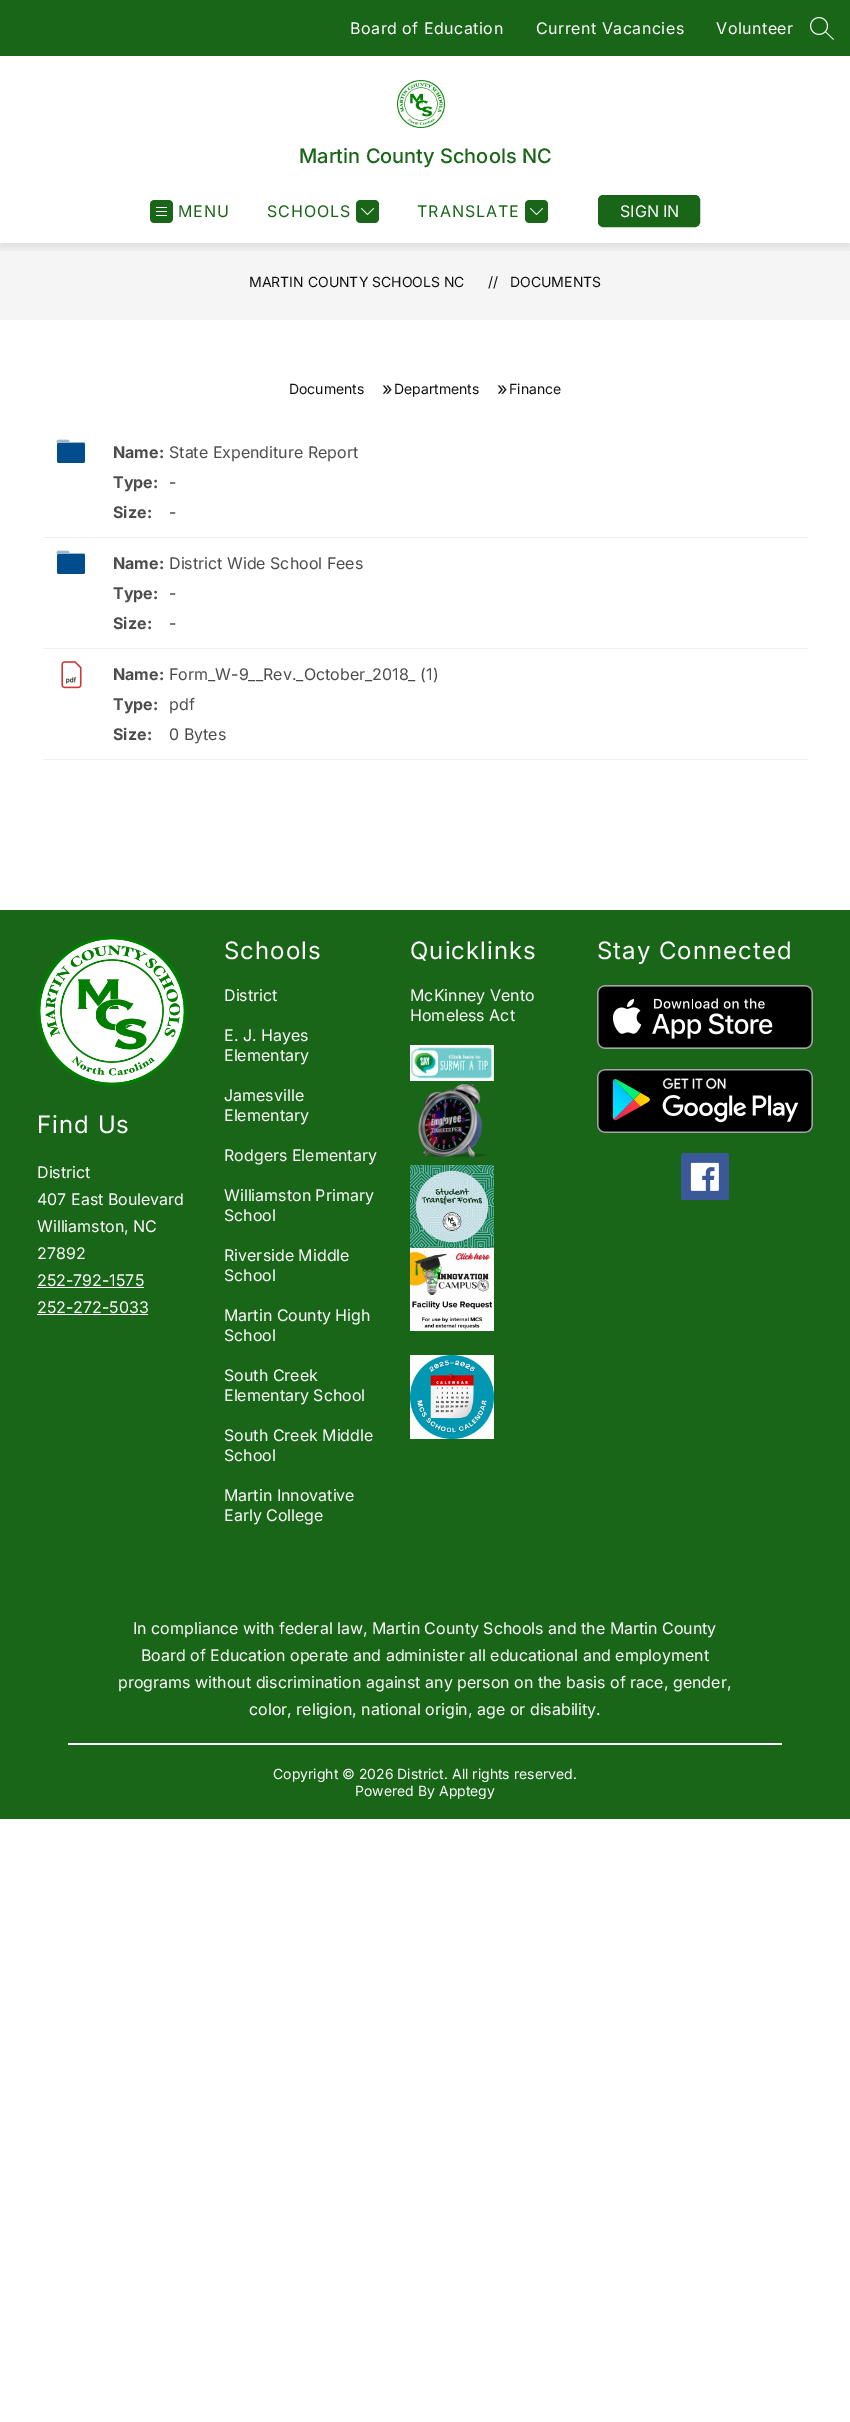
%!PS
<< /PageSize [850 2422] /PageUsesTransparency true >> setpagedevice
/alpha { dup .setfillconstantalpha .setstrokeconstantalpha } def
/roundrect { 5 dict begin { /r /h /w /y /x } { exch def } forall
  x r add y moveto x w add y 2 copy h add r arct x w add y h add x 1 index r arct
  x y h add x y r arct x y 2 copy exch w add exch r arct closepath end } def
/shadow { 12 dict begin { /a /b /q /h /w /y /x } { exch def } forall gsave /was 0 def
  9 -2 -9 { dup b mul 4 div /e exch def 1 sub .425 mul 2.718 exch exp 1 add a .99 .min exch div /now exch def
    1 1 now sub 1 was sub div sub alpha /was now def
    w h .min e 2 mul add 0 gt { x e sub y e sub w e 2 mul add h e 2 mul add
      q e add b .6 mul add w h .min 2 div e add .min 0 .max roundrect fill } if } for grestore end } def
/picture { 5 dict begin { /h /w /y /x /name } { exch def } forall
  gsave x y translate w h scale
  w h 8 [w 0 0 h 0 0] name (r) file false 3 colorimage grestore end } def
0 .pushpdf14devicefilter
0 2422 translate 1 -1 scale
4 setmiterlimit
1 setgray
0 0 850 2422 rectfill
0.961 setgray
0 243 850 77 rectfill
gsave
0 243 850 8 rectclip
0 setgray
0 4 850 243 0 5 0.1 shadow
grestore
0.098 0.4 0.098 setrgbcolor
0 0 850 56 rectfill
/Inter-Regular [16 0 0 -16 0 0] selectfont
1 setgray
350 34 moveto 0.5 0 (Board of Education) ashow
536 34 moveto 0.5 0 (Current Vacancies) ashow
716 34 moveto 0.5 0 (Volunteer) ashow
(img1.rgb) 810 17 24 23 picture
(img2.rgb) 397 80 48 48 picture
/Inter-Medium [20 0 0 -20 0 0] selectfont
0.098 0.4 0.098 setrgbcolor
299 163 moveto (Martin County Schools NC) show
(img3.rgb) 150 200 23 23 picture
/Inter-Regular [16 0 0 -16 0 0] selectfont
178 217 moveto 1 0 (MENU) ashow
267 217 moveto 1 0 (SCHOOLS) ashow
(img4.rgb) 356 200 23 23 picture
417 217 moveto 1 0 (TRANSLATE) ashow
(img4.rgb) 525 200 23 23 picture
598.5 195.5 101 31 4.5 roundrect gsave fill grestore
stroke
1 setgray
620 217 moveto (SIGN IN) show
/Inter-Regular [14 0 0 -14 0 0] selectfont
0.067 setgray
249 287 moveto (MARTIN COUNTY SCHOOLS NC) show
488 287 moveto (//) show
510 287 moveto (DOCUMENTS) show
289 394 moveto (Documents) show
/Inter-Regular [18 0 0 -18 0 0] selectfont
382 395 moveto (») show
/Inter-Regular [14 0 0 -14 0 0] selectfont
394 394 moveto (Departments) show
/Inter-Regular [18 0 0 -18 0 0] selectfont
497 395 moveto (») show
/Inter-Regular [14 0 0 -14 0 0] selectfont
509 394 moveto (Finance) show
0.941 setgray
43 537 765 1 rectfill
(img5.rgb) 56 439 29 24 picture
/Inter-Bold [16 0 0 -16 0 0] selectfont
0.298 setgray
113 458 moveto (Name:) show
/Inter-Regular [16 0 0 -16 0 0] selectfont
169 458 moveto (State Expenditure Report) show
/Inter-Bold [16 0 0 -16 0 0] selectfont
113 488 moveto (Type:) show
/Inter-Regular [16 0 0 -16 0 0] selectfont
169 488 moveto (-) show
/Inter-Bold [16 0 0 -16 0 0] selectfont
113 518 moveto (Size:) show
/Inter-Regular [16 0 0 -16 0 0] selectfont
169 518 moveto (-) show
0.941 setgray
43 648 765 1 rectfill
(img5.rgb) 56 550 29 24 picture
/Inter-Bold [16 0 0 -16 0 0] selectfont
0.298 setgray
113 569 moveto (Name:) show
/Inter-Regular [16 0 0 -16 0 0] selectfont
169 569 moveto (District Wide School Fees) show
/Inter-Bold [16 0 0 -16 0 0] selectfont
113 599 moveto (Type:) show
/Inter-Regular [16 0 0 -16 0 0] selectfont
169 599 moveto (-) show
/Inter-Bold [16 0 0 -16 0 0] selectfont
113 629 moveto (Size:) show
/Inter-Regular [16 0 0 -16 0 0] selectfont
169 629 moveto (-) show
0.941 setgray
43 759 765 1 rectfill
(img6.rgb) 61 661 21 28 picture
/Inter-Bold [16 0 0 -16 0 0] selectfont
0.298 setgray
113 680 moveto (Name:) show
/Inter-Regular [16 0 0 -16 0 0] selectfont
169 680 moveto (Form_W-9__Rev._October_2018_ \(1\)) show
/Inter-Bold [16 0 0 -16 0 0] selectfont
113 710 moveto (Type:) show
/Inter-Regular [16 0 0 -16 0 0] selectfont
169 710 moveto (pdf) show
/Inter-Bold [16 0 0 -16 0 0] selectfont
113 740 moveto (Size:) show
/Inter-Regular [16 0 0 -16 0 0] selectfont
169 740 moveto (0 Bytes) show
0.098 0.4 0.098 setrgbcolor
0 910 850 909 rectfill
/Inter-Regular [24 0 0 -24 0 0] selectfont
1 setgray
224 959 moveto 1 0 (Schools) ashow
/Inter-Regular [16 0 0 -16 0 0] selectfont
224 1001 moveto (District) show
224 1041 moveto (E. J. Hayes) show
224 1061 moveto (Elementary) show
224 1101 moveto (Jamesville) show
224 1121 moveto (Elementary) show
224 1161 moveto (Rodgers Elementary) show
224 1201 moveto (Williamston Primary) show
224 1221 moveto (School) show
224 1261 moveto (Riverside Middle) show
224 1281 moveto (School) show
224 1321 moveto (Martin County High) show
224 1341 moveto (School) show
224 1381 moveto (South Creek) show
224 1401 moveto (Elementary School) show
224 1441 moveto (South Creek Middle) show
224 1461 moveto (School) show
224 1501 moveto (Martin Innovative) show
224 1521 moveto (Early College) show
/Inter-Regular [24 0 0 -24 0 0] selectfont
410 959 moveto 1 0 (Quicklinks) ashow
/Inter-Regular [16 0 0 -16 0 0] selectfont
410 1001 moveto (McKinney Vento) show
410 1021 moveto (Homeless Act) show
(img7.rgb) 410 1045 84 36 picture
(img8.rgb) 418 1084 70 74 picture
(img9.rgb) 410 1165 84 83 picture
(img10.rgb) 410 1248 84 83 picture
(img11.rgb) 410 1355 84 84 picture
/Inter-Regular [24 0 0 -24 0 0] selectfont
597 959 moveto 1 0 (Stay Connected) ashow
(img12.rgb) 597 985 216 64 picture
(img13.rgb) 597 1069 216 64 picture
(img14.rgb) 681 1153 48 47 picture
(img15.rgb) 37 936 150 150 picture
37 1133 moveto 1 0 (Find Us) ashow
/Inter-Regular [16 0 0 -16 0 0] selectfont
37 1178 moveto (District) show
37 1205 moveto (407 East Boulevard) show
37 1232 moveto (Williamston, NC) show
37 1259 moveto (27892) show
37 1286 moveto (252-792-1575) show
37 1287 107 1 rectfill
37 1313 moveto (252-272-5033) show
37 1314 111 1 rectfill
133 1634 moveto (In compliance with federal law, Martin County Schools and the Martin County) show
141 1661 moveto (Board of Education operate and administer all educational and employment) show
118 1688 moveto (programs without discrimination against any person on the basis of race, gender,) show
249 1715 moveto (color, religion, national origin, age or disability.) show
68 1743 714 2 rectfill
/Inter-Regular [14 0 0 -14 0 0] selectfont
273 1779 moveto (Copyright © 2026 District. All rights reserved.) show
355 1796 moveto (Powered By Apptegy) show
.poppdf14devicefilter showpage
